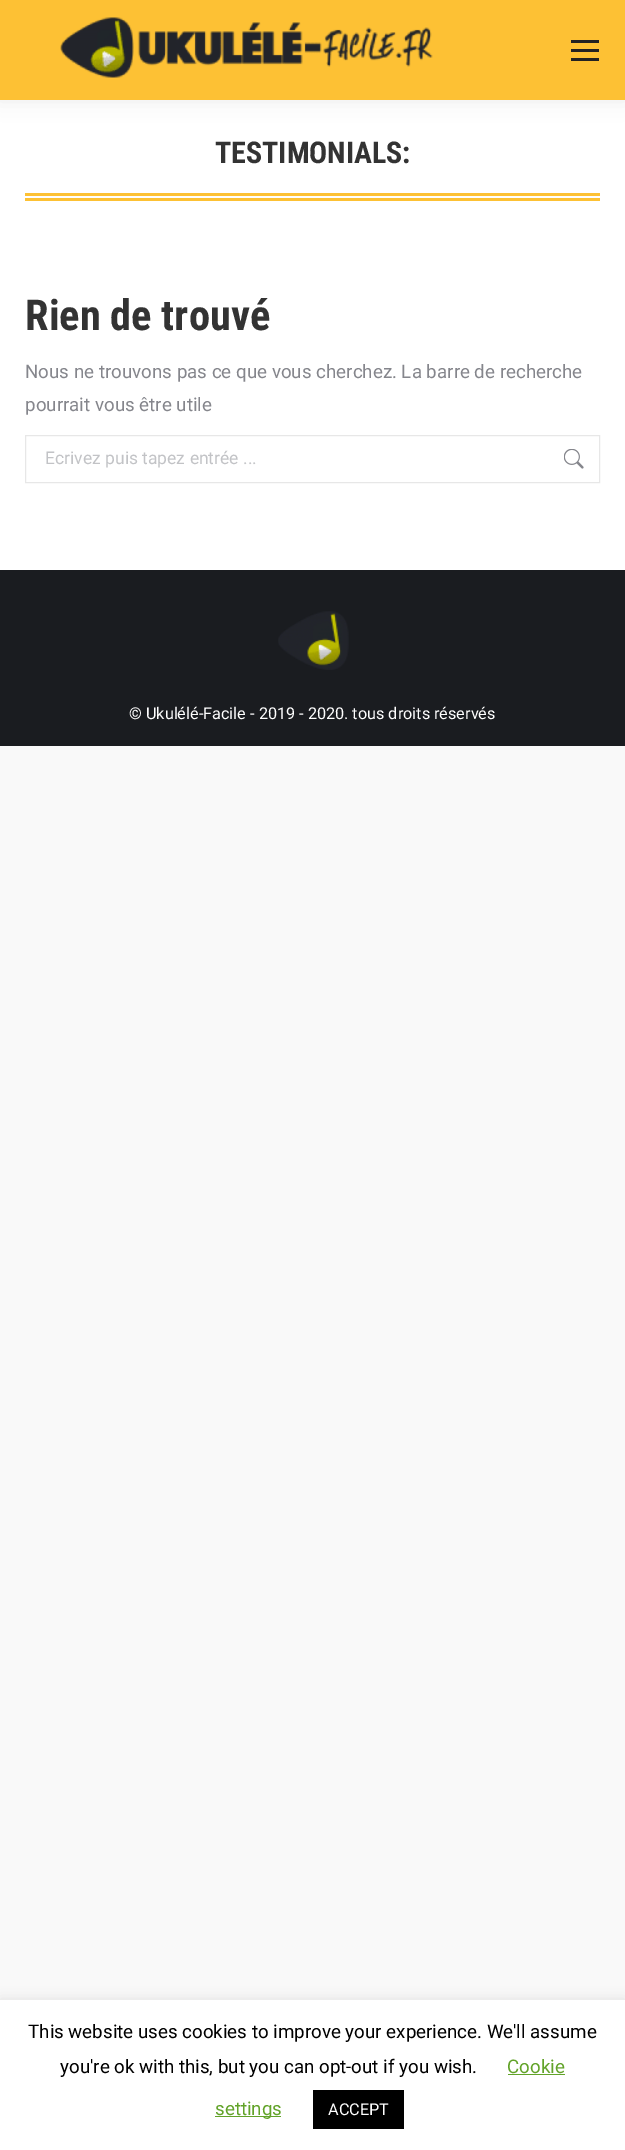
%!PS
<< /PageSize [625 2150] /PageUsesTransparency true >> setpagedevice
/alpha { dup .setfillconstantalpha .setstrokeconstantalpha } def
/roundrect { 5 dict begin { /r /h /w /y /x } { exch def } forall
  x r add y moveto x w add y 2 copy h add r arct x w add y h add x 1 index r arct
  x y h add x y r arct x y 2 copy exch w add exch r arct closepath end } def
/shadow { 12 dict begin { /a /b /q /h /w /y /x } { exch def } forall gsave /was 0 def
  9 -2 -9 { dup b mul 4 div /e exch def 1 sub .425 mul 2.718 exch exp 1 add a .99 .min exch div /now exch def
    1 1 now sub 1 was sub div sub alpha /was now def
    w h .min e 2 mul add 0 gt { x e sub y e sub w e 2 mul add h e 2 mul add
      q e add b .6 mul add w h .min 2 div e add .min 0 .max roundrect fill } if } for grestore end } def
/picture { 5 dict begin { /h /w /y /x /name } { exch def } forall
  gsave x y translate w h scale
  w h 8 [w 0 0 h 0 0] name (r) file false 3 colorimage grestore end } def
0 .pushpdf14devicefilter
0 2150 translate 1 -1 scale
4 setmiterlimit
0.976 setgray
0 0 625 2150 rectfill
1 setgray
0 100 625 470 rectfill
0 setgray
-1 -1 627 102 0 9.5 0.07 shadow
0.992 0.757 0.204 setrgbcolor
0 0 625 100 rectfill
(img1.rgb) 60 17 373 61 picture
0.133 setgray
571 40 28 3 rectfill
571 49 28 3 rectfill
571 58 28 3 rectfill
/RobotoCondensed-Bold [30 0 0 -30 0 0] selectfont
0.2 setgray
215 163 moveto (TESTIMONIALS:) show
0.992 0.757 0.204 setrgbcolor
25 193 575 3 rectfill
25 198 575 3 rectfill
/RobotoCondensed-Bold [42.5 0 0 -42.5 0 0] selectfont
0.2 setgray
25 330 moveto (Rien de trouvé) show
/Roboto-Regular [18.75 0 0 -18.75 0 0] selectfont
0.522 0.525 0.549 setrgbcolor
25 378 moveto (Nous ne trouvons pas ce que vous cherchez. La barre de recherche) show
25 411 moveto (pourrait vous être utile) show
0.906 setgray
25.5 435.5 574 47 rectstroke
/Roboto-Regular [17.5 0 0 -17.5 0 0] selectfont
0.761 0.765 0.776 setrgbcolor
45 464 moveto (Ecrivez puis tapez entrée ...) show
(img2.rgb) 564 449 20 20 picture
0.102 0.11 0.125 setrgbcolor
0 570 625 176 rectfill
(img3.rgb) 278 611 71 59 picture
/Roboto-Regular [16.25 0 0 -16.25 0 0] selectfont
1 setgray
129 719 moveto (© Ukulélé-Facile - 2019 - 2020. tous droits réservés) show
0.675 0.671 0.671 setrgbcolor
0 1999 625 150 0 6 0.3 shadow
1 setgray
0 2000 625 150 rectfill
/Roboto-Regular [18.75 0 0 -18.75 0 0] selectfont
0 setgray
28 2038 moveto (This website uses cookies to improve your experience. We'll assume) show
60 2073 moveto (you're ok with this, but you can opt-out if you wish.) show
0.384 0.639 0.161 setrgbcolor
507 2073 moveto (Cookie) show
508 2074 57 1 rectfill
215 2116 66 1 rectfill
215 2115 moveto (settings) show
0 setgray
313 2090 91 39 rectfill
/Roboto-Regular [16.25 0 0 -16.25 0 0] selectfont
1 setgray
328 2115 moveto (ACCEPT) show
.poppdf14devicefilter showpage
